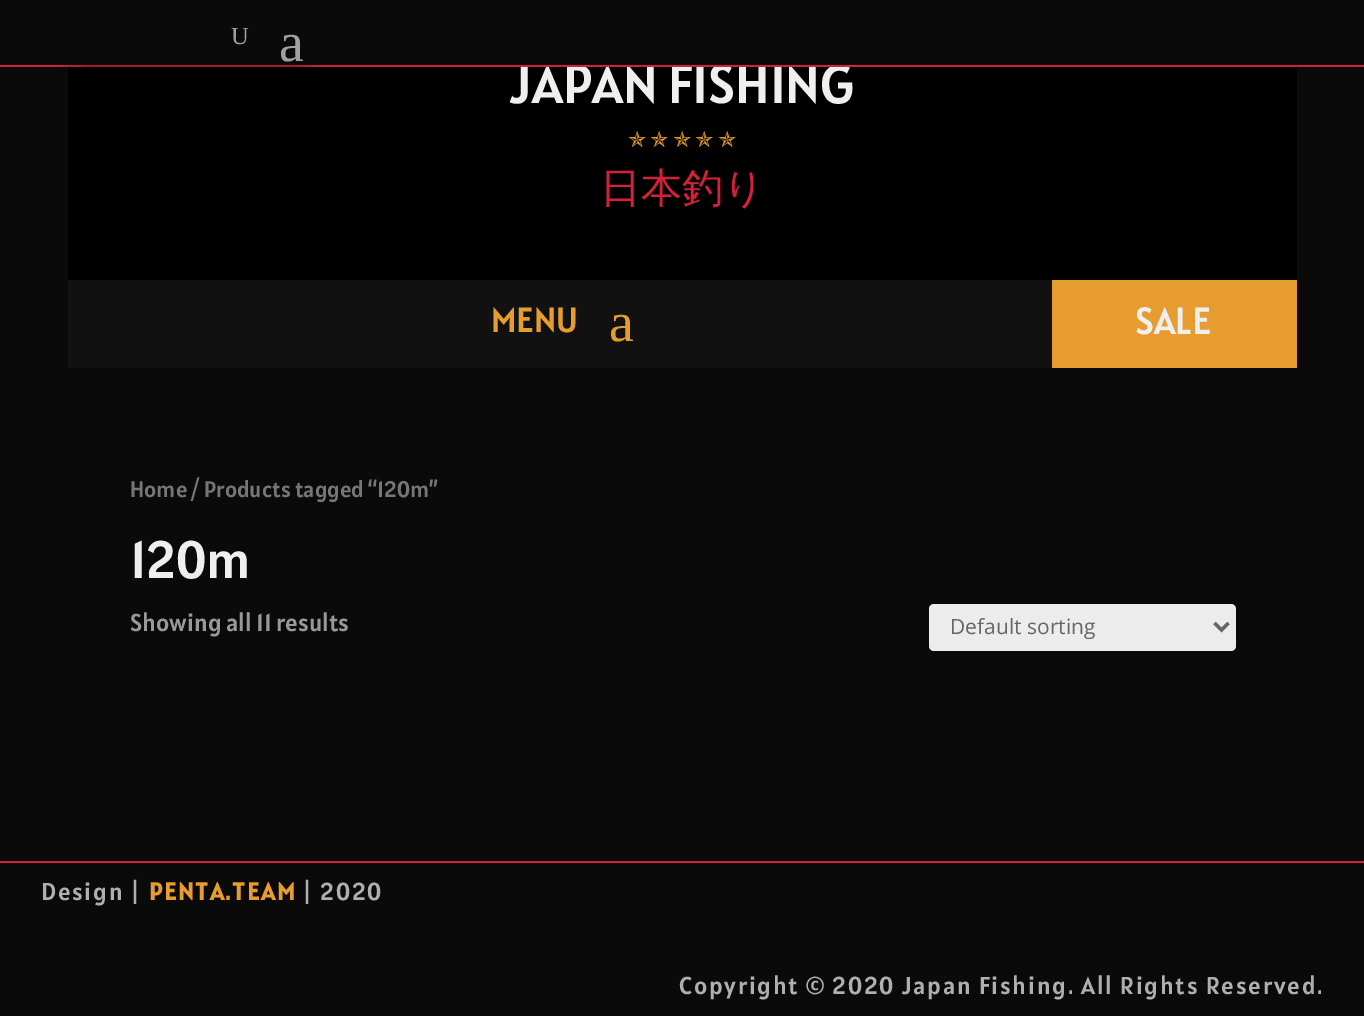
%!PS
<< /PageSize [1364 1016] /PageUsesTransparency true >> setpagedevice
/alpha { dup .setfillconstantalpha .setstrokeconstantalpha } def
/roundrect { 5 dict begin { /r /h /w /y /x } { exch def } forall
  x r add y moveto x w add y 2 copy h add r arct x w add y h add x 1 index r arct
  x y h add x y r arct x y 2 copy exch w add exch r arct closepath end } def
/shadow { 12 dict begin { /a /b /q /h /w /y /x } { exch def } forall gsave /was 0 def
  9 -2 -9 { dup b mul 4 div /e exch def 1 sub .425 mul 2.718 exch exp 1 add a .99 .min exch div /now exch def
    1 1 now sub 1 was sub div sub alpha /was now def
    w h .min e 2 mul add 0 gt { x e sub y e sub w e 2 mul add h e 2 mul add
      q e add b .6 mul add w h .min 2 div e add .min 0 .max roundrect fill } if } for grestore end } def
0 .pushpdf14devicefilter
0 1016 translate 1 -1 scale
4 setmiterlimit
0.039 setgray
0 0 1364 1016 rectfill
0 setgray
68 67 1229 213 rectfill
/Alatsi-Regular [54.5 0 0 -54.5 0 0] selectfont
0.937 setgray
510 103 moveto (JAPAN FISHING) show
0.039 setgray
520 64 326 1 rectfill
0.827 0.129 0.224 setrgbcolor
0 65 1364 2 rectfill
gsave
newpath 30 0 moveto 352 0 lineto 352 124 lineto 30 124 lineto closepath 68 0 moveto 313 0 lineto 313 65 lineto 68 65 lineto closepath eoclip newpath
0 setgray
79 32 224 43 0 16 0.3 shadow
grestore
/LiberationSerif-Regular [24.5 0 0 -24.5 0 0] selectfont
0.627 setgray
231 44 moveto (U) show
/LiberationSerif-Regular [56 0 0 -56 0 0] selectfont
279 61 moveto (a) show
/DejaVuSans-Regular [22 0 0 -22 0 0] selectfont
0.902 0.612 0.184 setrgbcolor
628 147 moveto -3 0 32 (✯ ✯ ✯ ✯ ✯) widthshow
/WenQuanYiZenHei-Medium [41 0 0 -41 0 0] selectfont
0.827 0.129 0.224 setrgbcolor
600 202 moveto (日本釣り) show
0.067 setgray
68 280 984 88 rectfill
/Alatsi-Regular [35 0 0 -35 0 0] selectfont
0.902 0.612 0.184 setrgbcolor
491 332 moveto (MENU) show
/LiberationSerif-Regular [56 0 0 -56 0 0] selectfont
609 341 moveto (a) show
1052 280 245 88 rectfill
/Alatsi-Regular [38 0 0 -38 0 0] selectfont
0.937 setgray
1135 334 moveto (SALE) show
/Alatsi-Regular [22.5 0 0 -22.5 0 0] selectfont
0.463 setgray
130 497 moveto (Home / Products tagged “120m”) show
/Alatsi-Regular [52.5 0 0 -52.5 0 0] selectfont
0.937 setgray
130 578 moveto (120m) show
/Alatsi-Regular [24.5 0 0 -24.5 0 0] selectfont
0.6 setgray
130 631 moveto (Showing all 11 results) show
0.925 setgray
929 604 307 47 5 roundrect fill
0.4 setgray
3.5 setlinewidth
newpath 1214.5 623 moveto 1221.5 630 lineto 1228.5 623 lineto stroke
/OpenSans-Regular [21 0 0 -21 0 0] selectfont
950 634 moveto (Default sorting) show
0.827 0.129 0.224 setrgbcolor
0 861 1364 2 rectfill
/Alatsi-Regular [24.5 0 0 -24.5 0 0] selectfont
0.686 setgray
41 900 moveto 1.75 0 (Design |) ashow
/Alatsi-Bold [24.5 0 0 -24.5 0 0] selectfont
0.902 0.612 0.184 setrgbcolor
149 900 moveto 1.75 0 (PENTA.TEAM) ashow
/Alatsi-Regular [24.5 0 0 -24.5 0 0] selectfont
0.686 setgray
302 900 moveto 1.75 0 (| 2020) ashow
679 994 moveto 1.75 0 (Copyright © 2020 Japan Fishing. All Rights Reserved.) ashow
.poppdf14devicefilter showpage
